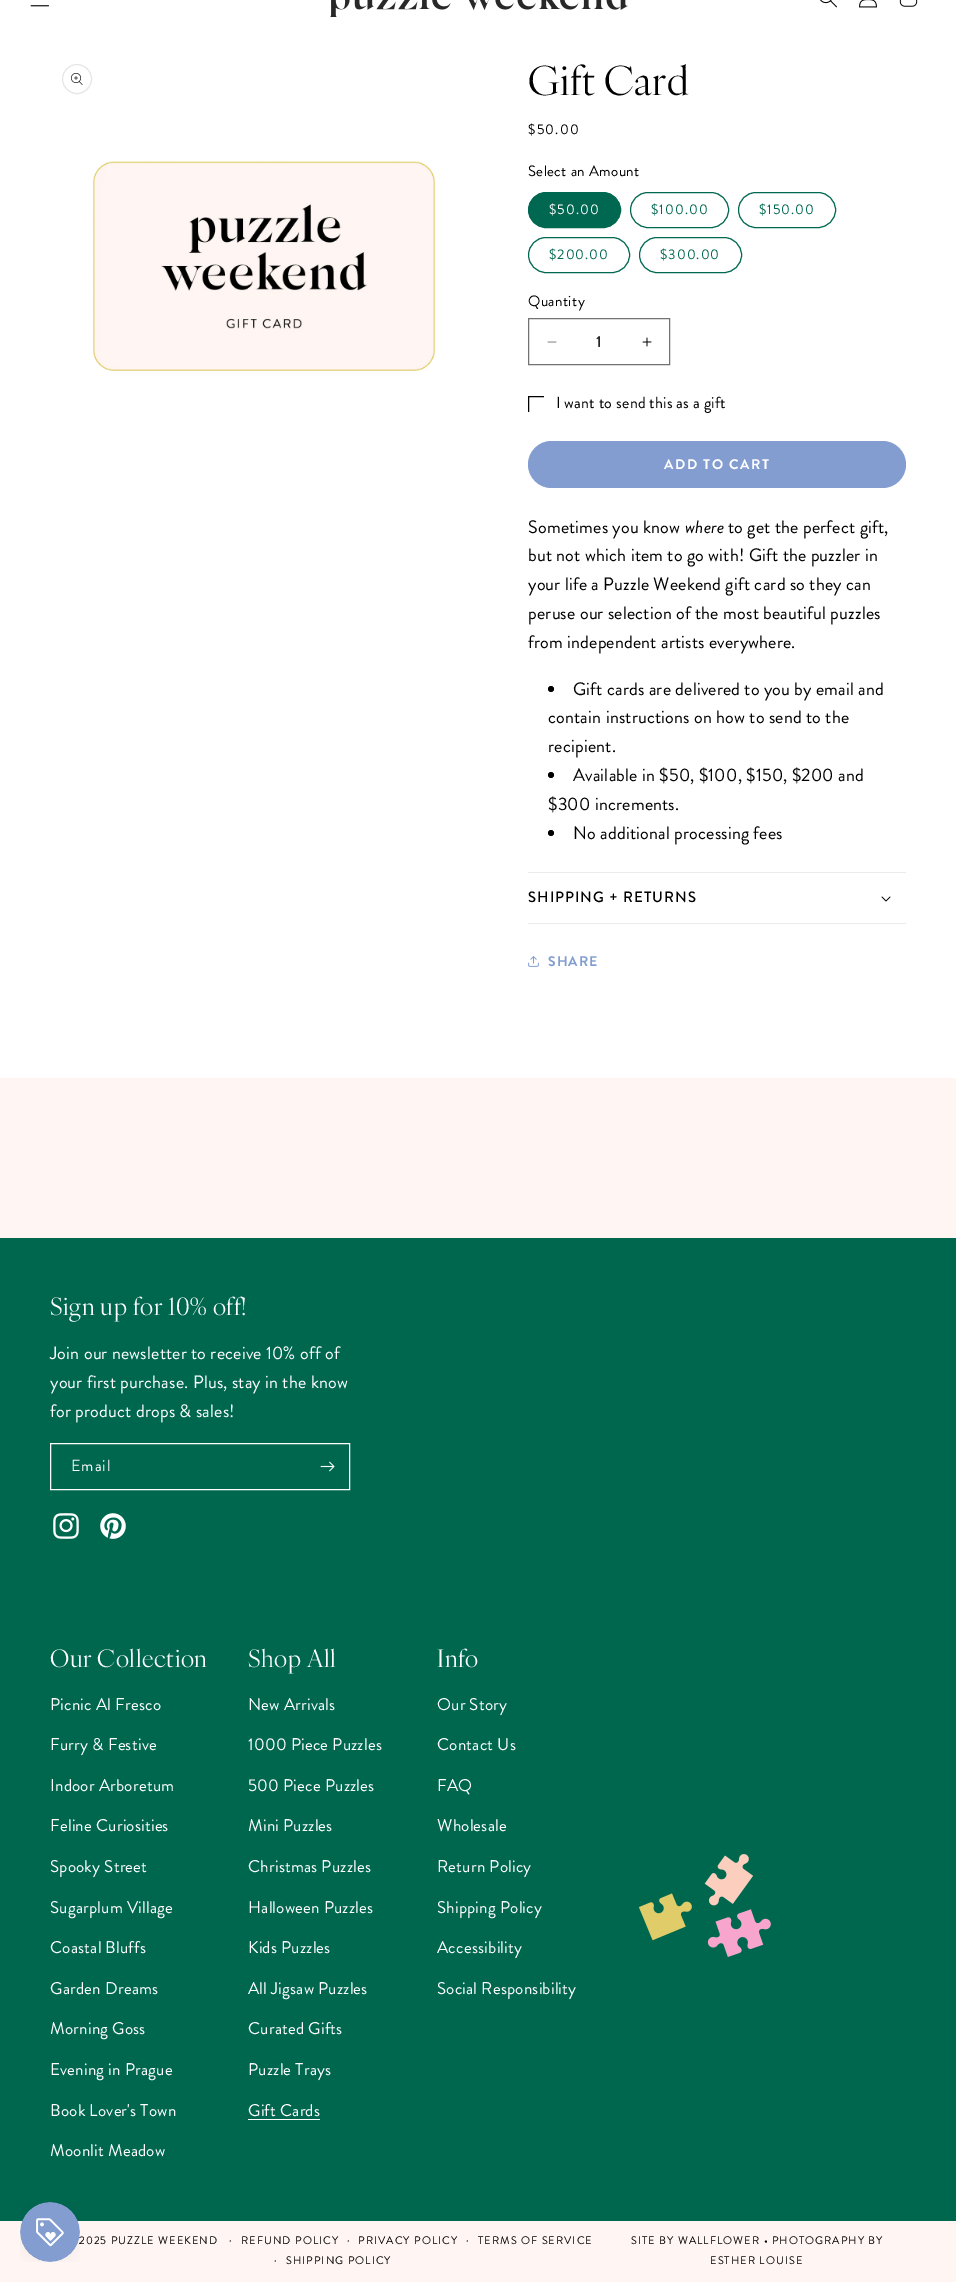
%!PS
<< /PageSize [956 2282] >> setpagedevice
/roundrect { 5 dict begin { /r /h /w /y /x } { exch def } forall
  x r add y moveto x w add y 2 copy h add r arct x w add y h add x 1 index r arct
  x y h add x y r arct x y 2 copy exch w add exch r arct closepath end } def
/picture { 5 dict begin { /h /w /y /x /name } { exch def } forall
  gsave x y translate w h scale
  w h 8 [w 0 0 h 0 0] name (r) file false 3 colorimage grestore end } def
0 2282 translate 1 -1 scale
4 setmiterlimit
1 setgray
0 0 956 2282 rectfill
(img1.rgb) 30 5 20 2 picture
(img2.rgb) 330 0 298 17 picture
(img3.rgb) 820 0 17 8 picture
(img4.rgb) 859 0 18 8 picture
(img5.rgb) 899 0 19 7 picture
0.902 setgray
newpath 77 79 14.5 0 360 arc closepath stroke
(img6.rgb) 71 73 12 12 picture
(img7.rgb) 92 161 344 210 picture
/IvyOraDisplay-Regular [40 0 0 -40 0 0] selectfont
0 setgray
528 95 moveto 0.6 0 (Gift Card) ashow
/BrandonGrotesque-Regular [14 0 0 -14 0 0] selectfont
528 134 moveto 1.25 0 ($50.00) ashow
/BrandonGrotesque-Regular [15 0 0 -15 0 0] selectfont
528 176 moveto 0.4 0 (Select an Amount) ashow
0 0.408 0.314 setrgbcolor
528.5 192.5 92 35 17.5 roundrect gsave fill grestore
0.004 0.412 0.318 setrgbcolor
stroke
/BrandonGrotesque-Regular [14 0 0 -14 0 0] selectfont
1 setgray
549 214 moveto 1 0 ($50.00) ashow
0.004 0.412 0.318 setrgbcolor
630.5 192.5 98 35 17.5 roundrect stroke
651 214 moveto 1 0 ($100.00) ashow
738.5 192.5 97 35 17.5 roundrect stroke
759 214 moveto 1 0 ($150.00) ashow
528.5 237.5 101 35 17.5 roundrect stroke
549 259 moveto 1 0 ($200.00) ashow
639.5 237.5 102 35 17.5 roundrect stroke
660 259 moveto 1 0 ($300.00) ashow
/BrandonGrotesque-Regular [15 0 0 -15 0 0] selectfont
0 setgray
528 306 moveto 0.4 0 (Quantity) ashow
(img8.rgb) 547 341 10 2 picture
(img9.rgb) 642 337 10 10 picture
0.451 setgray
528.5 318.5 141 46 rectstroke
/BrandonGrotesque-Medium [16 0 0 -16 0 0] selectfont
0.149 setgray
596 347 moveto (1) show
gsave
528 396 16 16 rectclip
0 setgray
528.5 396.5 16 16 rectstroke
grestore
/BrandonGrotesque-Regular [16 0 0 -16 0 0] selectfont
0 setgray
556 408 moveto 0.2 0 (I want to send this as a gift) ashow
0.514 0.616 0.82 setrgbcolor
528 441 378 47 23.5 roundrect fill
/BrandonGrotesque-Bold [14 0 0 -14 0 0] selectfont
1 setgray
664 469 moveto 1.5 0 (ADD TO CART) ashow
/BrandonGrotesque-Regular [18 0 0 -18 0 0] selectfont
0 setgray
528 533 moveto 0.2 0 (Sometimes you know) ashow
/BrandonGrotesque-Italic [18 0 0 -18 0 0] selectfont
685 533 moveto 0.2 0 (where) ashow
/BrandonGrotesque-Regular [18 0 0 -18 0 0] selectfont
728 533 moveto 0.2 0 (to get the perfect gift,) ashow
528 561 moveto 0.2 0 (but not which item to go with! Gift the puzzler in) ashow
528 590 moveto 0.2 0 (your life a Puzzle Weekend gift card so they can) ashow
528 619 moveto 0.2 0 (peruse our selection of the most beautiful puzzles) ashow
528 648 moveto 0.2 0 (from independent artists everywhere.) ashow
newpath 551 689 3 0 360 arc closepath fill
573 695 moveto 0.2 0 (Gift cards are delivered to you by email and) ashow
548 723 moveto 0.2 0 (contain instructions on how to send to the) ashow
548 752 moveto 0.2 0 (recipient.) ashow
newpath 551 775 3 0 360 arc closepath fill
573 781 moveto 0.2 0 (Available in $50, $100, $150, $200 and) ashow
548 810 moveto 0.2 0 ($300 increments.) ashow
newpath 551 833 3 0 360 arc closepath fill
573 839 moveto 0.2 0 (No additional processing fees) ashow
0.922 setgray
528 872 378 1 rectfill
528 923 378 1 rectfill
/BrandonGrotesque-Medium [15 0 0 -15 0 0] selectfont
0 setgray
528 902 moveto 1 0 (SHIPPING + RETURNS) ashow
(img10.rgb) 881 896 10 6 picture
(img11.rgb) 528 956 11 11 picture
/BrandonGrotesque-Bold [14 0 0 -14 0 0] selectfont
0.514 0.616 0.82 setrgbcolor
548 966 moveto 1 0 (SHARE) ashow
1 0.961 0.949 setrgbcolor
0 1078 956 160 rectfill
0 0.404 0.31 setrgbcolor
0 1238 956 983 rectfill
/IvyOraDisplay-Regular [24 0 0 -24 0 0] selectfont
1 setgray
50 1315 moveto 0.6 0 (Sign up for 10% off!) ashow
/BrandonGrotesque-Regular [18 0 0 -18 0 0] selectfont
50 1359 moveto 0.2 0 (Join our newsletter to receive 10% off of) ashow
50 1388 moveto 0.2 0 (your first purchase. Plus, stay in the know) ashow
50 1417 moveto 0.2 0 (for product drops & sales!) ashow
50.5 1443.5 299 46 rectstroke
/BrandonGrotesque-Regular [16 0 0 -16 0 0] selectfont
71 1471 moveto 1 0 (Email) ashow
(img12.rgb) 320 1461 15 11 picture
(img13.rgb) 53 1513 26 26 picture
(img14.rgb) 100 1513 26 26 picture
/IvyOraDisplay-Regular [24 0 0 -24 0 0] selectfont
50 1667 moveto 0.6 0 (Our Collection) ashow
/BrandonGrotesque-Regular [17 0 0 -17 0 0] selectfont
50 1710 moveto 0.2 0 (Picnic Al Fresco) ashow
50 1750 moveto 0.2 0 (Furry & Festive) ashow
50 1791 moveto 0.2 0 (Indoor Arboretum) ashow
50 1831 moveto 0.2 0 (Feline Curiosities) ashow
50 1872 moveto 0.2 0 (Spooky Street) ashow
50 1913 moveto 0.2 0 (Sugarplum Village) ashow
50 1953 moveto 0.2 0 (Coastal Bluffs) ashow
50 1994 moveto 0.2 0 (Garden Dreams) ashow
50 2034 moveto 0.2 0 (Morning Goss) ashow
50 2075 moveto 0.2 0 (Evening in Prague) ashow
50 2116 moveto 0.2 0 (Book Lover's Town) ashow
50 2156 moveto 0.2 0 (Moonlit Meadow) ashow
/IvyOraDisplay-Regular [24 0 0 -24 0 0] selectfont
248 1667 moveto 0.6 0 (Shop All) ashow
/BrandonGrotesque-Regular [17 0 0 -17 0 0] selectfont
248 1710 moveto 0.2 0 (New Arrivals) ashow
248 1750 moveto 0.2 0 (1000 Piece Puzzles) ashow
248 1791 moveto 0.2 0 (500 Piece Puzzles) ashow
248 1831 moveto 0.2 0 (Mini Puzzles) ashow
248 1872 moveto 0.2 0 (Christmas Puzzles) ashow
248 1913 moveto 0.2 0 (Halloween Puzzles) ashow
248 1953 moveto 0.2 0 (Kids Puzzles) ashow
248 1994 moveto 0.2 0 (All Jigsaw Puzzles) ashow
248 2034 moveto 0.2 0 (Curated Gifts) ashow
248 2075 moveto 0.2 0 (Puzzle Trays) ashow
248 2116 moveto 0.2 0 (Gift Cards) ashow
248 2119 72 1 rectfill
/IvyOraDisplay-Regular [24 0 0 -24 0 0] selectfont
437 1667 moveto 0.6 0 (Info) ashow
/BrandonGrotesque-Regular [17 0 0 -17 0 0] selectfont
437 1710 moveto 0.2 0 (Our Story) ashow
437 1750 moveto 0.2 0 (Contact Us) ashow
437 1791 moveto 0.2 0 (FAQ) ashow
437 1831 moveto 0.2 0 (Wholesale) ashow
437 1872 moveto 0.2 0 (Return Policy) ashow
437 1913 moveto 0.2 0 (Shipping Policy) ashow
437 1953 moveto 0.2 0 (Accessibility) ashow
437 1994 moveto 0.2 0 (Social Responsibility) ashow
(img15.rgb) 638 1854 133 103 picture
1 0.961 0.949 setrgbcolor
0 2221 956 61 rectfill
/BrandonGrotesque-Regular [11 0 0 -11 0 0] selectfont
0 setgray
79 2244 moveto 1 0 (2025 PUZZLE WEEKEND) ashow
/BrandonGrotesque-Regular [12 0 0 -12 0 0] selectfont
229 2244 moveto 1 0 (·) ashow
/BrandonGrotesque-Regular [11 0 0 -11 0 0] selectfont
241 2244 moveto 1 0 (REFUND POLICY) ashow
/BrandonGrotesque-Regular [12 0 0 -12 0 0] selectfont
347 2244 moveto 1 0 (·) ashow
/BrandonGrotesque-Regular [11 0 0 -11 0 0] selectfont
358 2244 moveto 1 0 (PRIVACY POLICY) ashow
/BrandonGrotesque-Regular [12 0 0 -12 0 0] selectfont
466 2244 moveto 1 0 (·) ashow
/BrandonGrotesque-Regular [11 0 0 -11 0 0] selectfont
478 2244 moveto 1 0 (TERMS OF SERVICE) ashow
/BrandonGrotesque-Regular [12 0 0 -12 0 0] selectfont
274 2264 moveto 1 0 (·) ashow
/BrandonGrotesque-Regular [11 0 0 -11 0 0] selectfont
286 2264 moveto 1 0 (SHIPPING POLICY) ashow
631 2244 moveto 1 0 (SITE BY WALLFLOWER • PHOTOGRAPHY BY) ashow
710 2264 moveto 1 0 (ESTHER LOUISE) ashow
(img16.rgb) 20 2202 60 60 picture
showpage
